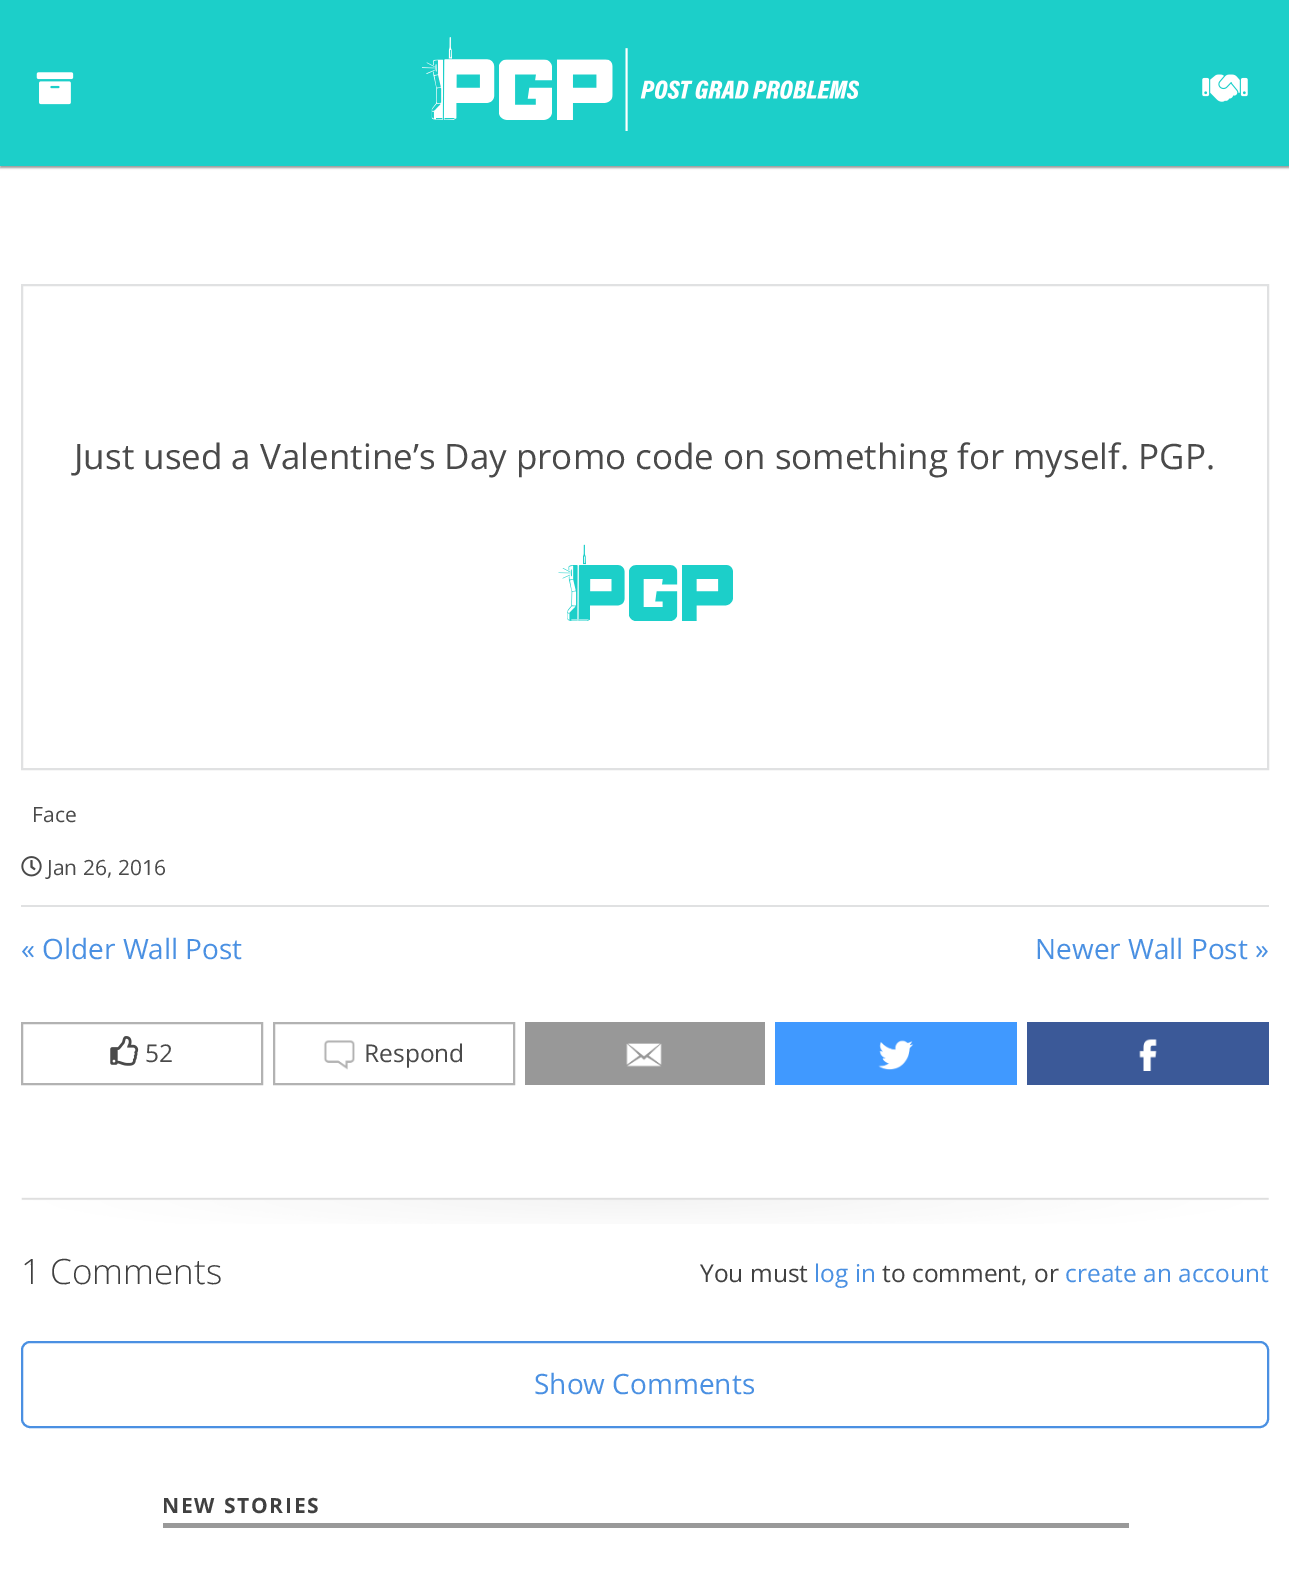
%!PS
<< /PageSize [1289 1575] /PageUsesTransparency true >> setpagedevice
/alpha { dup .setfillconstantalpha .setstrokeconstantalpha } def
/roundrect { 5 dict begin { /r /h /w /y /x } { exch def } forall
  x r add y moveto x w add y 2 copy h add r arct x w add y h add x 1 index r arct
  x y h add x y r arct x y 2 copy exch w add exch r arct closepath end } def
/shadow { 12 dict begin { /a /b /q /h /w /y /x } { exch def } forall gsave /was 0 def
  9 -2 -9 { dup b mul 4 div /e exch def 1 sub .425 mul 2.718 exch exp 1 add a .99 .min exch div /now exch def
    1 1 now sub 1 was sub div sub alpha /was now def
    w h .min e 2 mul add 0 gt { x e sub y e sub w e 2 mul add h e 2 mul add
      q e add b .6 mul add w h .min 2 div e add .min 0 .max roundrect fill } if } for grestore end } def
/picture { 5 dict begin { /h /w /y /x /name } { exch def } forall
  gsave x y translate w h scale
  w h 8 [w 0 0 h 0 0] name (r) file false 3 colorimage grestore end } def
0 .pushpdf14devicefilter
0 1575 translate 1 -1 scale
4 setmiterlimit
1 setgray
0 0 1289 1575 rectfill
0.6 setgray
0 2 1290 166 0 1 1 shadow
0.11 0.812 0.788 setrgbcolor
0 0 1289 166 rectfill
(img1.rgb) 36 72 38 33 picture
(img2.rgb) 422 37 437 94 picture
(img3.rgb) 1202 74 46 28 picture
0.878 0.882 0.886 setrgbcolor
21 905 1248 2 rectfill
2 setlinewidth
22 285 1246 484 rectstroke
/OpenSans-Regular [35 0 0 -35 0 0] selectfont
0.29 setgray
74 469 moveto (Just used a Valentine’s Day promo code on something for myself. PGP.) show
(img4.rgb) 558 544 175 77 picture
/OpenSans-Regular [21 0 0 -21 0 0] selectfont
32 822 moveto (Face) show
(img5.rgb) 21 856 21 21 picture
47 875 moveto (Jan 26, 2016) show
/OpenSans-Regular [28 0 0 -28 0 0] selectfont
0.29 0.565 0.886 setrgbcolor
21 959 moveto (« Older Wall Post) show
1035 959 moveto (Newer Wall Post ») show
0.698 setgray
22 1023 240 61 rectstroke
(img6.rgb) 110 1036 29 30 picture
/OpenSans-Regular [24.5 0 0 -24.5 0 0] selectfont
0.29 setgray
145 1062 moveto (52) show
0.698 setgray
274 1023 240 61 rectstroke
(img7.rgb) 323 1040 32 30 picture
0.29 setgray
364 1062 moveto (Respond) show
0.596 setgray
525 1022 240 63 rectfill
(img8.rgb) 626 1043 36 24 picture
0.251 0.6 1 setrgbcolor
775 1022 242 63 rectfill
(img9.rgb) 878 1040 36 30 picture
0.231 0.349 0.596 setrgbcolor
1027 1022 242 63 rectfill
(img10.rgb) 1139 1039 18 32 picture
(img11.rgb) 21 1197 1248 27 picture
/OpenSans-Light [35 0 0 -35 0 0] selectfont
0.251 setgray
21 1284 moveto (1 Comments) show
/OpenSans-Regular [24.5 0 0 -24.5 0 0] selectfont
700 1282 moveto (You must) show
0.29 0.565 0.886 setrgbcolor
814 1282 moveto (log in) show
0.251 setgray
882 1282 moveto (to comment, or) show
0.29 0.565 0.886 setrgbcolor
1065 1282 moveto (create an account) show
22 1342 1246 85 8 roundrect stroke
/OpenSans-Regular [28 0 0 -28 0 0] selectfont
534 1394 moveto (Show Comments) show
0.6 setgray
163 1523 966 5 rectfill
/OpenSans-Bold [21 0 0 -21 0 0] selectfont
0.251 setgray
162 1513 moveto 1.75 0 (NEW STORIES) ashow
.poppdf14devicefilter showpage
